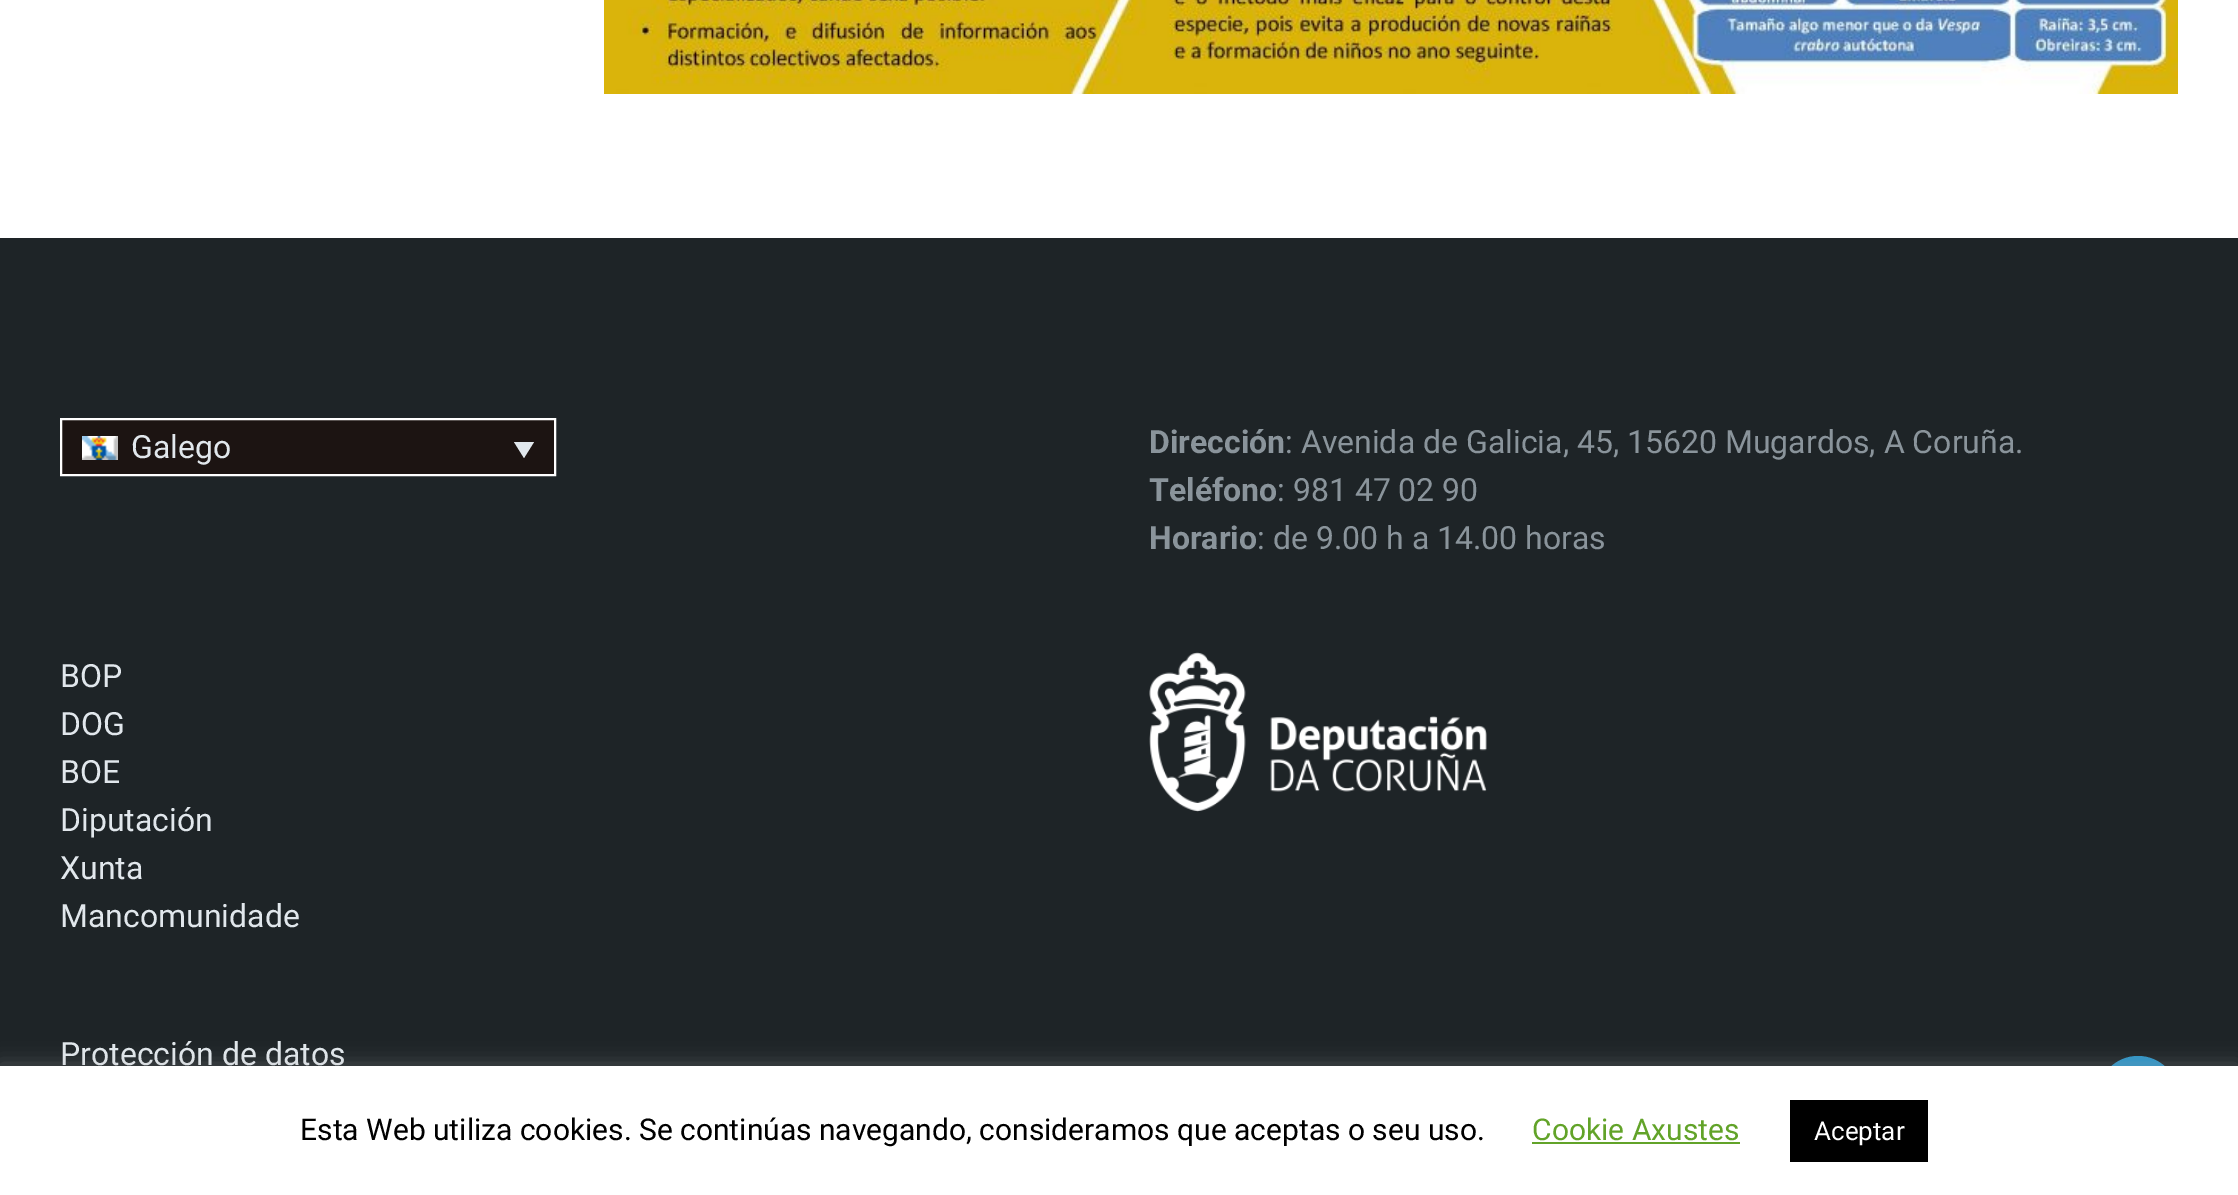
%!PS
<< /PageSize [2238 1195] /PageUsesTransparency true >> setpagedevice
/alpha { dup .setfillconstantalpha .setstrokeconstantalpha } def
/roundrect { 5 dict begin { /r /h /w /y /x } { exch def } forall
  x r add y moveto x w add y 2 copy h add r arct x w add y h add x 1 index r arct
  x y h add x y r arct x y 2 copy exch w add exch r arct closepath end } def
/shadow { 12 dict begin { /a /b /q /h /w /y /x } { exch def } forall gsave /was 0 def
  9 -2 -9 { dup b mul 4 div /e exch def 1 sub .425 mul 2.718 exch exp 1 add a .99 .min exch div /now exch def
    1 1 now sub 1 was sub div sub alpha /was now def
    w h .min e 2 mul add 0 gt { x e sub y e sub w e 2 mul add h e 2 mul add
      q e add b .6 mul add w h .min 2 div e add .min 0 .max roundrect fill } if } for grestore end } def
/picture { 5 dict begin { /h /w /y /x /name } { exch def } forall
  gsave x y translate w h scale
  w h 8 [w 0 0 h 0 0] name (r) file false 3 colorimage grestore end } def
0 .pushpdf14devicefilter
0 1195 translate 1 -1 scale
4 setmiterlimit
1 setgray
0 0 2238 1195 rectfill
(img1.rgb) 604 0 1574 94 picture
0.118 0.141 0.153 setrgbcolor
0 238 2238 828 rectfill
0.11 0.078 0.071 setrgbcolor
newpath 61 419 moveto 555 419 lineto 555 475 lineto 61 475 lineto closepath gsave fill grestore
1 setgray
2 setlinewidth
stroke
(img2.rgb) 82 436 36 24 picture
/Roboto-Regular [32 0 0 -32 0 0] selectfont
0.882 0.906 0.925 setrgbcolor
131 458 moveto (Galego) show
newpath 514 442 moveto 534 442 lineto 524 458 lineto closepath fill
/Roboto-Bold [32 0 0 -32 0 0] selectfont
0.541 0.58 0.608 setrgbcolor
1149 453 moveto (Dirección) show
/Roboto-Regular [32 0 0 -32 0 0] selectfont
1285 453 moveto (: Avenida de Galicia, 45, 15620 Mugardos, A Coruña.) show
/Roboto-Bold [32 0 0 -32 0 0] selectfont
1149 501 moveto (Teléfono) show
/Roboto-Regular [32 0 0 -32 0 0] selectfont
1277 501 moveto (: 981 47 02 90) show
/Roboto-Bold [32 0 0 -32 0 0] selectfont
1149 549 moveto (Horario) show
/Roboto-Regular [32 0 0 -32 0 0] selectfont
1257 549 moveto (: de 9.00 h a 14.00 horas) show
0.882 0.906 0.925 setrgbcolor
60 687 moveto (BOP) show
60 735 moveto (DOG) show
60 783 moveto (BOE) show
60 831 moveto (Diputación) show
60 879 moveto (Xunta) show
60 927 moveto (Mancomunidade) show
(img3.rgb) 1149 652 338 160 picture
60 1065 moveto (Protección de datos) show
0.176 0.576 0.773 setrgbcolor
newpath 2138 1096 40 0 360 arc closepath fill
0.675 0.671 0.671 setrgbcolor
0 1064 2238 130 0 10 0.3 shadow
1 setgray
0 1066 2238 129 rectfill
/Roboto-Regular [30 0 0 -30 0 0] selectfont
0 setgray
300 1140 moveto (Esta Web utiliza cookies. Se continúas navegando, consideramos que aceptas o seu uso.) show
0.384 0.639 0.161 setrgbcolor
1532 1140 moveto (Cookie Axustes) show
1532 1142 208 2 rectfill
0 setgray
1790 1100 138 62 rectfill
/Roboto-Regular [26 0 0 -26 0 0] selectfont
1 setgray
1814 1140 moveto (Aceptar) show
.poppdf14devicefilter showpage
